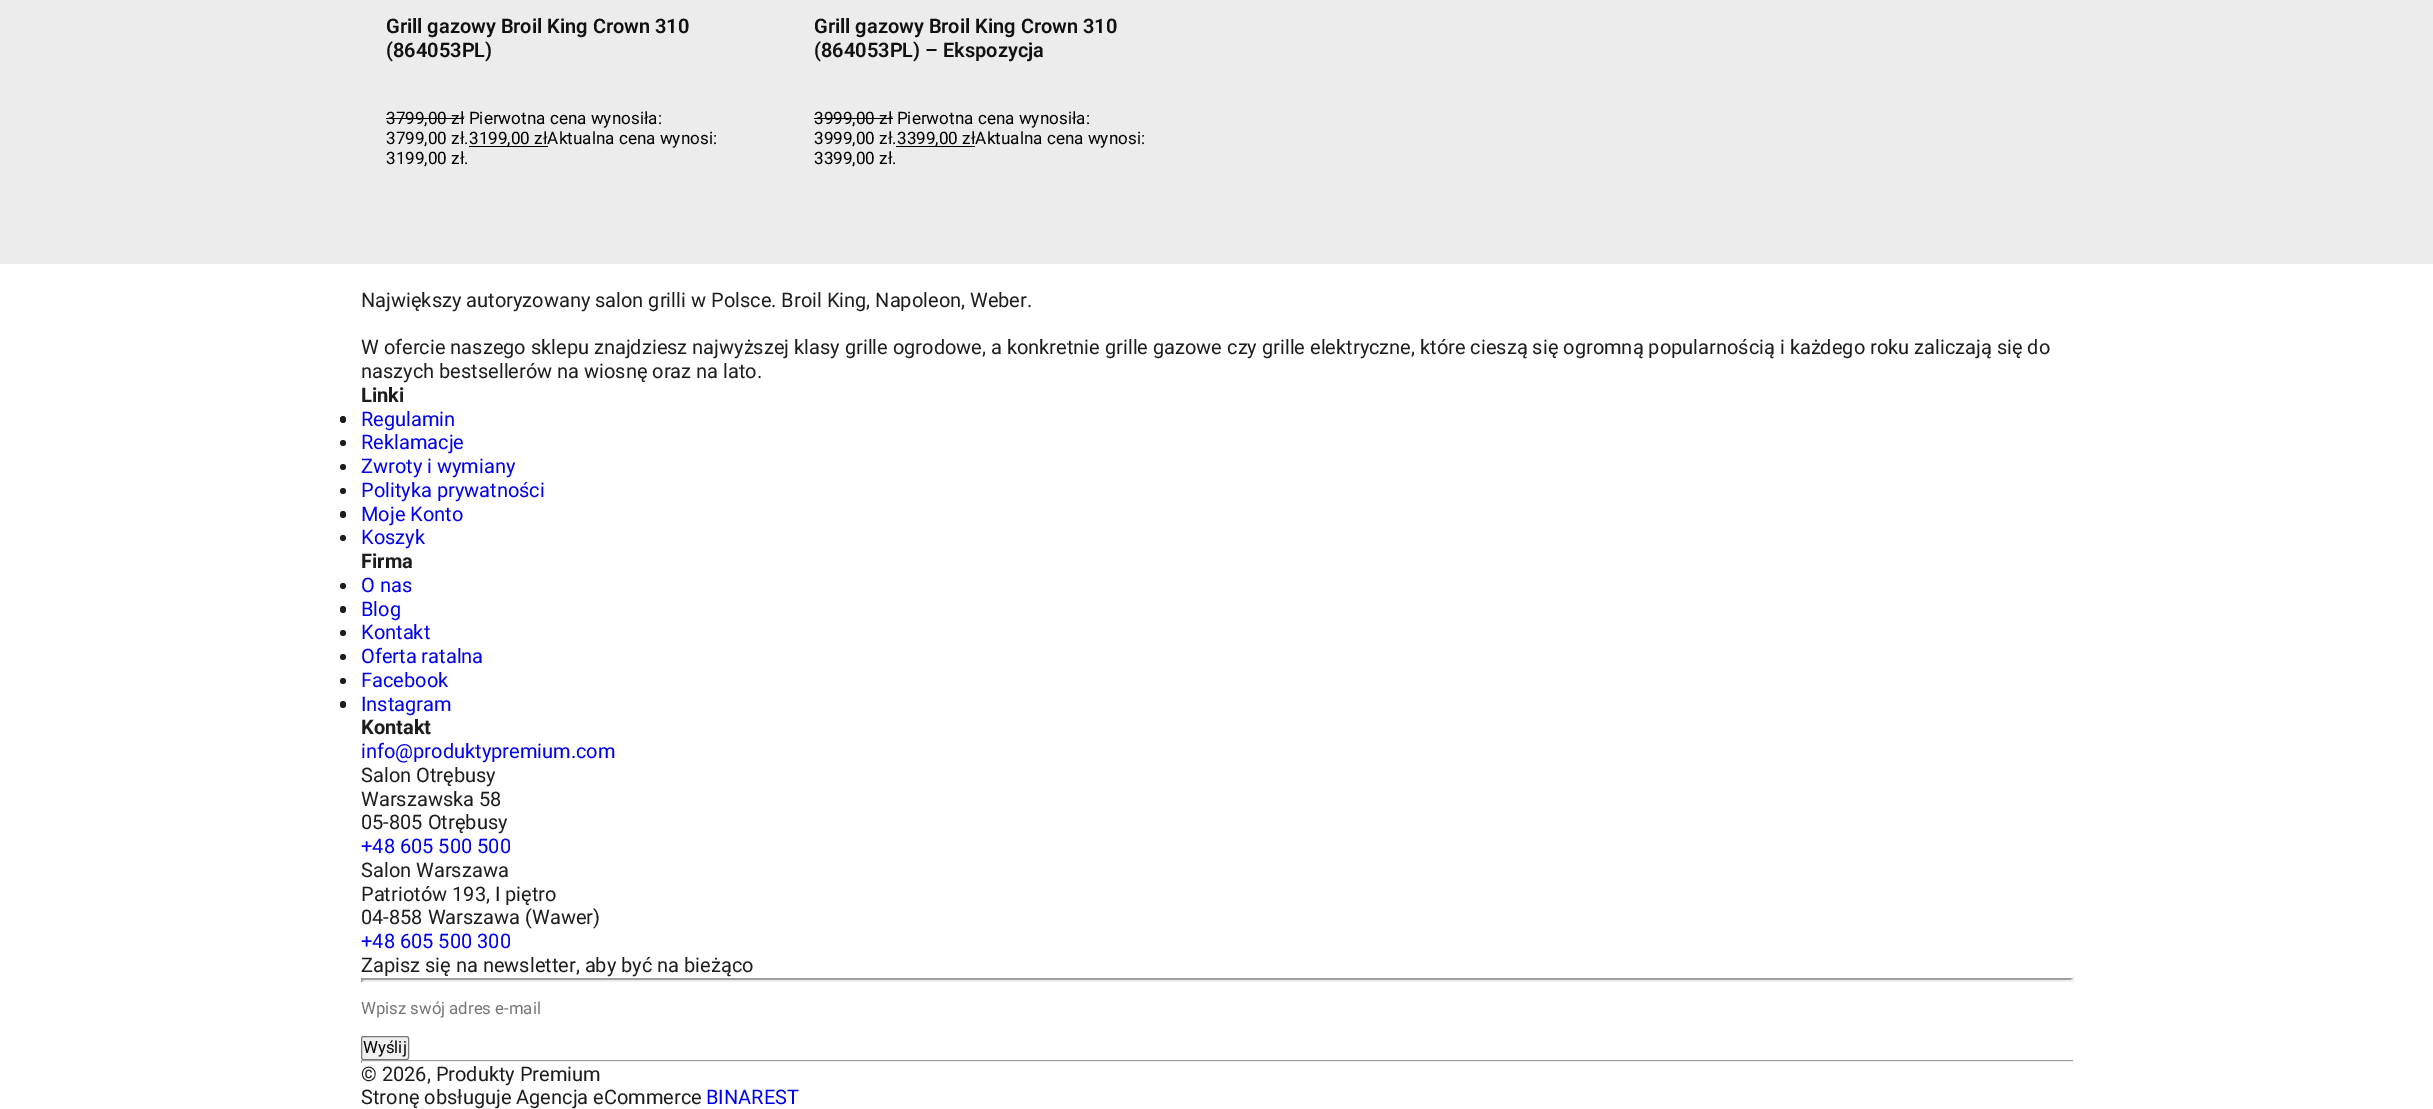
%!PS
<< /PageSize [2433 1109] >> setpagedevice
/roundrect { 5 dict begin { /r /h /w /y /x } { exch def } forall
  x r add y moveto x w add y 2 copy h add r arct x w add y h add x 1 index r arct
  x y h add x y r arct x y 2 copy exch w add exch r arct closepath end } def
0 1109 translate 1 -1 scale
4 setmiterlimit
1 setgray
0 0 2433 1109 rectfill
0.925 setgray
0 0 2433 264 rectfill
/Roboto-SemiBold [20 0 0 -20 0 0] selectfont
0.067 setgray
386 33 moveto (Grill gazowy Broil King Crown 310) show
386 57 moveto (\(864053PL\)) show
/Roboto-Regular [17.1 0 0 -17.1 0 0] selectfont
0 setgray
386 124 moveto (3799,00 zł Pierwotna cena wynosiła:) show
386 118 78 1 rectfill
386 144 moveto (3799,00 zł.) show
469 146 79 1 rectfill
469 144 moveto (3199,00 złAktualna cena wynosi:) show
386 164 moveto (3199,00 zł.) show
/Roboto-SemiBold [20 0 0 -20 0 0] selectfont
0.067 setgray
814 33 moveto (Grill gazowy Broil King Crown 310) show
814 57 moveto (\(864053PL\) – Ekspozycja) show
/Roboto-Regular [17.1 0 0 -17.1 0 0] selectfont
0 setgray
814 124 moveto (3999,00 zł Pierwotna cena wynosiła:) show
814 118 79 1 rectfill
814 144 moveto (3999,00 zł.) show
896 146 79 1 rectfill
897 144 moveto (3399,00 złAktualna cena wynosi:) show
814 164 moveto (3399,00 zł.) show
/Roboto-Regular [20 0 0 -20 0 0] selectfont
0.114 0.114 0.106 setrgbcolor
361 307 moveto (Największy autoryzowany salon grilli w Polsce. Broil King, Napoleon, Weber.) show
361 354 moveto (W ofercie naszego sklepu znajdziesz najwyższej klasy grille ogrodowe, a konkretnie grille gazowe czy grille elektryczne, które cieszą się ogromną popularnością i każdego roku zaliczają się do) show
361 378 moveto (naszych bestsellerów na wiosnę oraz na lato.) show
/Roboto-Bold [20 0 0 -20 0 0] selectfont
361 402 moveto (Linki) show
340 416 6 7 3 roundrect fill
/Roboto-Regular [20 0 0 -20 0 0] selectfont
0 0 0.933 setrgbcolor
361 426 moveto (Regulamin) show
0.114 0.114 0.106 setrgbcolor
newpath 343 443 3 0 360 arc closepath fill
0 0 0.933 setrgbcolor
361 449 moveto (Reklamacje) show
0.114 0.114 0.106 setrgbcolor
newpath 343 467 3 0 360 arc closepath fill
0 0 0.933 setrgbcolor
361 473 moveto (Zwroty i wymiany) show
0.114 0.114 0.106 setrgbcolor
newpath 343 491 3 0 360 arc closepath fill
0 0 0.933 setrgbcolor
361 497 moveto (Polityka prywatności) show
0.114 0.114 0.106 setrgbcolor
340 511 6 7 3 roundrect fill
0 0 0.933 setrgbcolor
361 521 moveto (Moje Konto) show
0.114 0.114 0.106 setrgbcolor
newpath 343 538 3 0 360 arc closepath fill
0 0 0.933 setrgbcolor
361 544 moveto (Koszyk) show
/Roboto-Bold [20 0 0 -20 0 0] selectfont
0.114 0.114 0.106 setrgbcolor
361 568 moveto (Firma) show
newpath 343 586 3 0 360 arc closepath fill
/Roboto-Regular [20 0 0 -20 0 0] selectfont
0 0 0.933 setrgbcolor
361 592 moveto (O nas) show
0.114 0.114 0.106 setrgbcolor
340 606 6 7 3 roundrect fill
0 0 0.933 setrgbcolor
361 616 moveto (Blog) show
0.114 0.114 0.106 setrgbcolor
newpath 343 633 3 0 360 arc closepath fill
0 0 0.933 setrgbcolor
361 639 moveto (Kontakt) show
0.114 0.114 0.106 setrgbcolor
newpath 343 657 3 0 360 arc closepath fill
0 0 0.933 setrgbcolor
361 663 moveto (Oferta ratalna) show
0.114 0.114 0.106 setrgbcolor
newpath 343 681 3 0 360 arc closepath fill
0 0 0.933 setrgbcolor
361 687 moveto (Facebook) show
0.114 0.114 0.106 setrgbcolor
340 701 6 7 3 roundrect fill
0 0 0.933 setrgbcolor
361 711 moveto (Instagram) show
/Roboto-Bold [20 0 0 -20 0 0] selectfont
0.114 0.114 0.106 setrgbcolor
361 734 moveto (Kontakt) show
/Roboto-Regular [20 0 0 -20 0 0] selectfont
0 0 0.933 setrgbcolor
361 758 moveto (info@produktypremium.com) show
0.114 0.114 0.106 setrgbcolor
361 782 moveto (Salon Otrębusy) show
361 806 moveto (Warszawska 58) show
361 829 moveto (05-805 Otrębusy) show
0 0 0.933 setrgbcolor
361 853 moveto (+48 605 500 500) show
0.114 0.114 0.106 setrgbcolor
361 877 moveto (Salon Warszawa) show
361 901 moveto (Patriotów 193, I piętro) show
361 924 moveto (04-858 Warszawa \(Wawer\)) show
0 0 0.933 setrgbcolor
361 948 moveto (+48 605 500 300) show
0.114 0.114 0.106 setrgbcolor
361 972 moveto (Zapisz się na newsletter, aby być na bieżąco) show
0.624 setgray
newpath 361 978 moveto 2074 978 lineto 2071 980 lineto 364 980 lineto closepath fill
0.937 setgray
newpath 2074 977.5 moveto 2074 982.5 lineto 2071 980 lineto closepath fill
newpath 2074 982 moveto 361 982 lineto 364 980 lineto 2071 980 lineto closepath fill
0.624 setgray
newpath 361 982.5 moveto 361 977.5 lineto 364 980 lineto closepath fill
/Roboto-Regular [16.75 0 0 -16.75 0 0] selectfont
0.459 setgray
361 1014 moveto (Wpisz swój adres e-mail) show
0.937 setgray
361.5 1036.5 47 23 2 roundrect gsave fill grestore
0.463 setgray
stroke
0 setgray
363 1053 moveto (Wyślij) show
0.624 setgray
361 1060 1713 1 rectfill
0.933 setgray
2073 1060 1 3 rectfill
361 1061 1713 1 rectfill
0.624 setgray
361 1060 1 3 rectfill
/Roboto-Regular [20 0 0 -20 0 0] selectfont
0.114 0.114 0.106 setrgbcolor
361 1081 moveto (© 2026, Produkty Premium) show
361 1104 moveto (Stronę obsługuje Agencja eCommerce) show
0 0 0.933 setrgbcolor
706 1104 moveto (BINAREST) show
showpage
